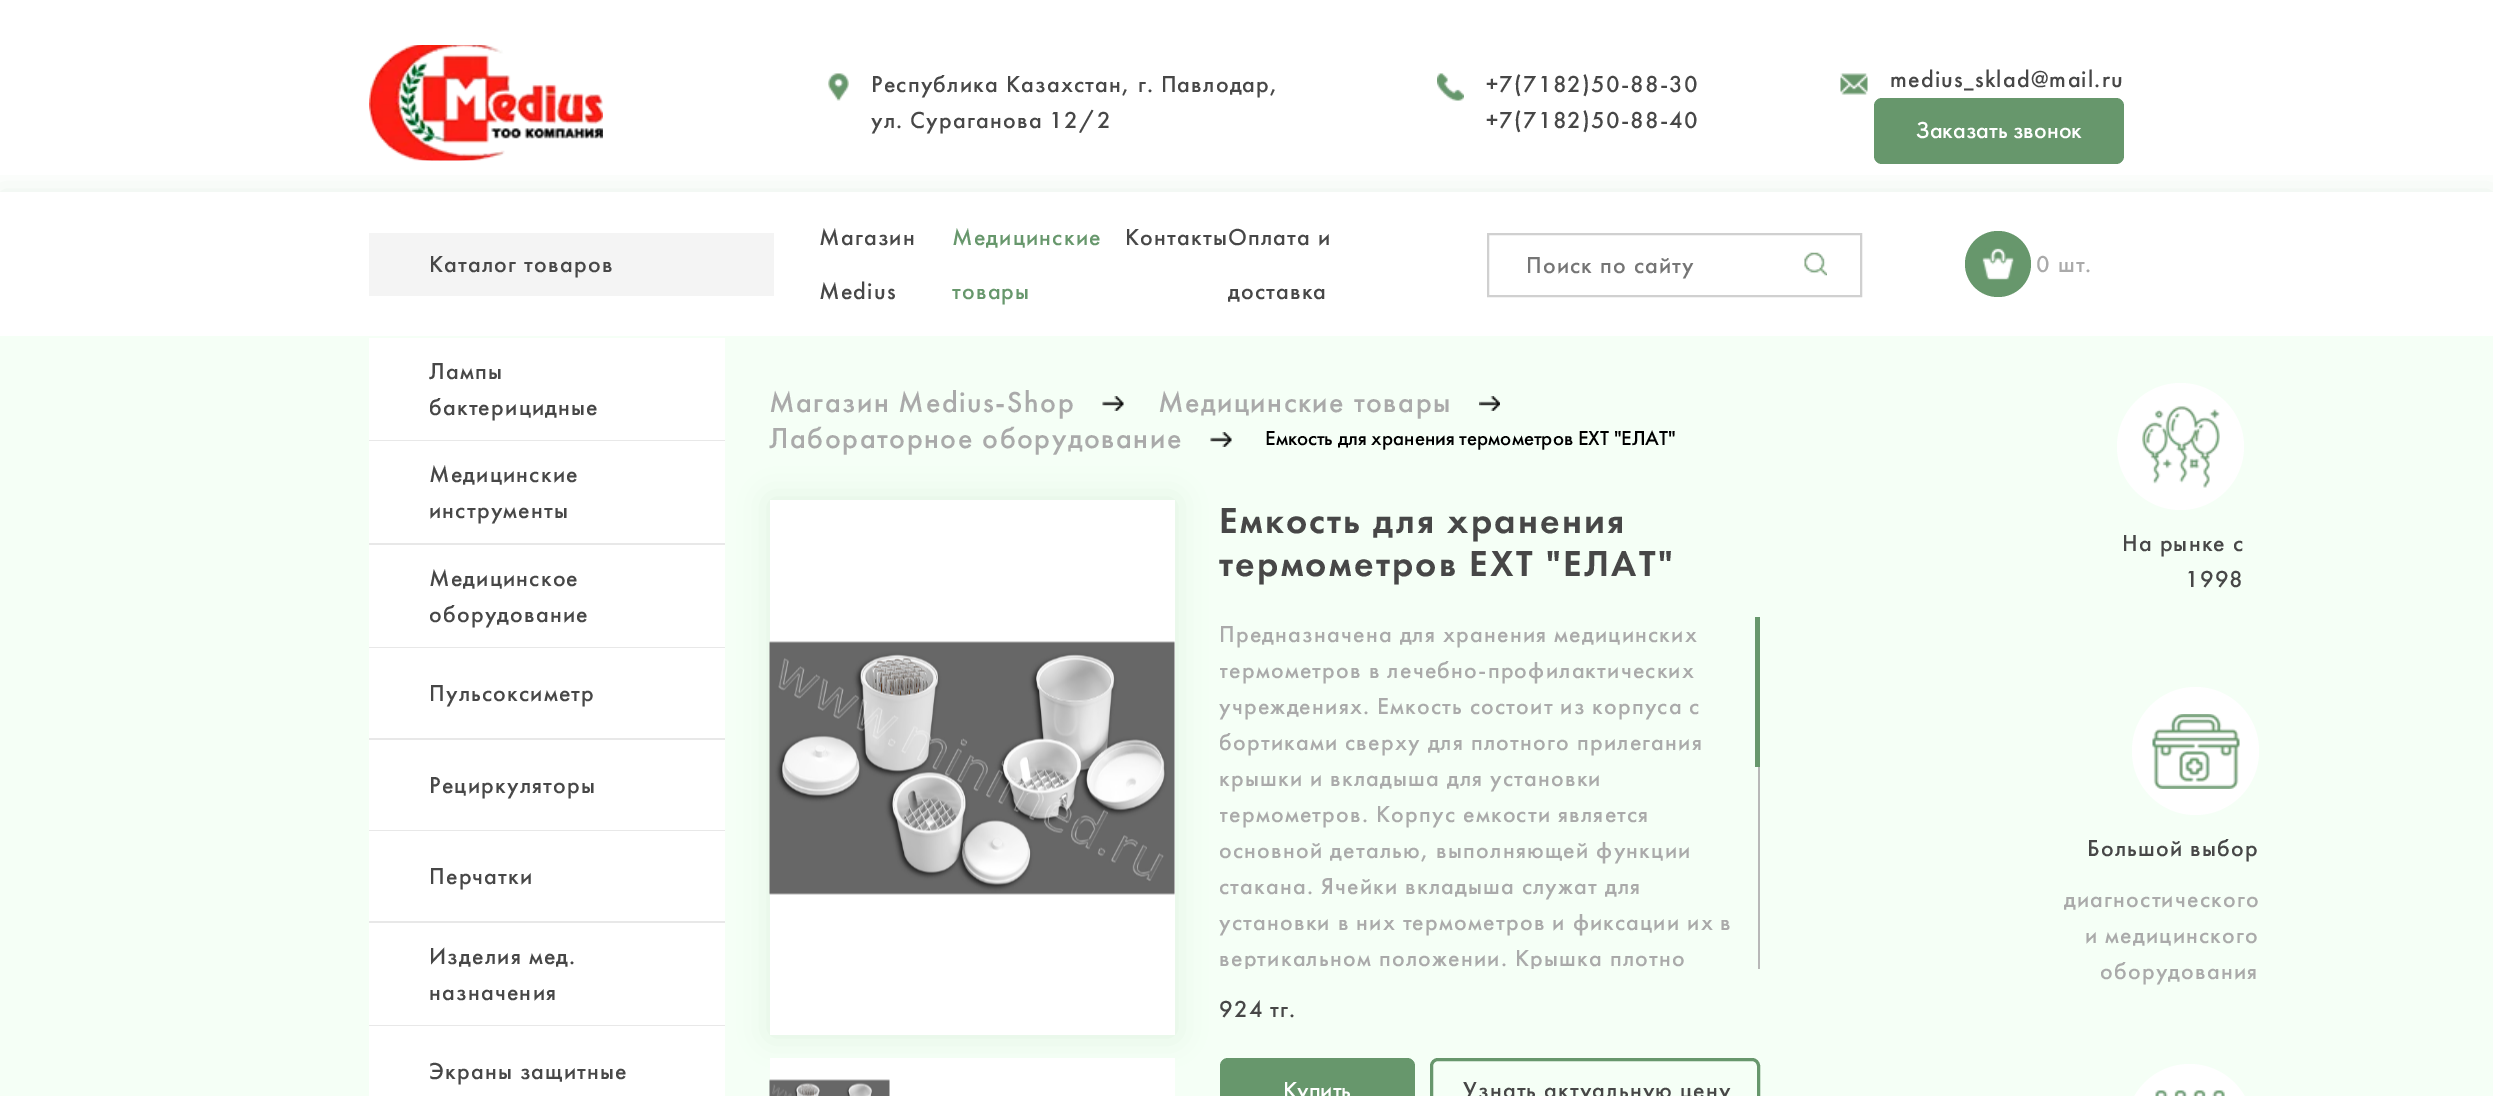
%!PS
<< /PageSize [2493 1096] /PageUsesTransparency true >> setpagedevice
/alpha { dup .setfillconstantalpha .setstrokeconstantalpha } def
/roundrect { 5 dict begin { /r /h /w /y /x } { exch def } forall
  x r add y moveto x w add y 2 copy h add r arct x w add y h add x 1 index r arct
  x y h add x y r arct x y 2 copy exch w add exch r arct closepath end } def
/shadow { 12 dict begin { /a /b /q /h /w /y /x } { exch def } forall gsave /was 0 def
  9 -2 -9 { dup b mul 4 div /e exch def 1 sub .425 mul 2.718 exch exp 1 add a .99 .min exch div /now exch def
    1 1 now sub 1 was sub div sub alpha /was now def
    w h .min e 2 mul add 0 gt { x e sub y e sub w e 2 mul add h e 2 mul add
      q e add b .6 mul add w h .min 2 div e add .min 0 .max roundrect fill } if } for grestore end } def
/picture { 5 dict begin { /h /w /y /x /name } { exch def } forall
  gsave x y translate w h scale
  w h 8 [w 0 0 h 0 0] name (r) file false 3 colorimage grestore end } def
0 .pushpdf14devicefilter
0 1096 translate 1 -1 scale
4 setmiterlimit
1 setgray
0 0 2493 1096 rectfill
gsave
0 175 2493 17 rectclip
0.404 0.592 0.424 setrgbcolor
0 192 2493 144 0 15 0.15 shadow
grestore
(img1.rgb) 369 45 234 116 picture
(img2.rgb) 828 73 21 28 picture
/FuturaPT-Medium [24 0 0 -24 0 0] selectfont
0.278 setgray
871 92 moveto 1.2 0 (Республика Казахстан, г. Павлодар,) ashow
871 128 moveto 1.2 0 (ул. Сураганова 12/2) ashow
(img3.rgb) 1437 73 27 28 picture
1486 92 moveto 1.2 0 (+7\(7182\)50-88-30) ashow
1486 128 moveto 1.2 0 (+7\(7182\)50-88-40) ashow
(img4.rgb) 1840 73 28 22 picture
1890 87 moveto 1.2 0 (medius_sklad@mail.ru) ashow
0.404 0.592 0.424 setrgbcolor
1874 98 250 66 8 roundrect fill
1 setgray
1916 138 moveto (Заказать звонок) show
0.957 setgray
369 233 405 63 rectfill
0.278 setgray
429 272 moveto 1.2 0 (Каталог товаров) ashow
819 245 moveto 1.2 0 (Магазин) ashow
819 299 moveto 1.2 0 (Medius) ashow
0.404 0.592 0.424 setrgbcolor
952 245 moveto 1.2 0 (Медицинские) ashow
952 299 moveto 1.2 0 (товары) ashow
0.278 setgray
1125 245 moveto 1.2 0 (КонтактыОплата и) ashow
1228 299 moveto 1.2 0 (доставка) ashow
0.816 setgray
2 setlinewidth
1488 234 373 62 rectstroke
0.459 setgray
1526 273 moveto 1.2 0 (Поиск по сайту) ashow
(img5.rgb) 1804 252 23 24 picture
0.404 0.592 0.424 setrgbcolor
newpath 1998 264 33 0 360 arc closepath fill
(img6.rgb) 1982 248 32 32 picture
0.667 setgray
2036 272 moveto 1.2 0 (0 шт.) ashow
0.961 1 0.965 setrgbcolor
0 336 2493 760 rectfill
1 setgray
369 338 356 687 rectfill
0.91 setgray
369 440 356 1 rectfill
0.278 setgray
429 379 moveto 1.2 0 (Лампы) ashow
429 415 moveto 1.2 0 (бактерицидные) ashow
0.91 setgray
369 543 356 2 rectfill
0.278 setgray
429 482 moveto 1.2 0 (Медицинские) ashow
429 518 moveto 1.2 0 (инструменты) ashow
0.91 setgray
369 647 356 1 rectfill
0.278 setgray
429 586 moveto 1.2 0 (Медицинское) ashow
429 622 moveto 1.2 0 (оборудование) ashow
0.91 setgray
369 738 356 2 rectfill
0.278 setgray
429 701 moveto 1.2 0 (Пульсоксиметр) ashow
0.91 setgray
369 830 356 1 rectfill
0.278 setgray
429 793 moveto 1.2 0 (Рециркуляторы) ashow
0.91 setgray
369 921 356 2 rectfill
0.278 setgray
429 884 moveto 1.2 0 (Перчатки) ashow
0.91 setgray
369 1025 356 1 rectfill
0.278 setgray
429 964 moveto 1.2 0 (Изделия мед.) ashow
429 1000 moveto 1.2 0 (назначения) ashow
1 setgray
369 1026 356 70 rectfill
0.278 setgray
429 1079 moveto 1.2 0 (Экраны защитные) ashow
/FuturaPT-Medium [30 0 0 -30 0 0] selectfont
0.667 setgray
769 412 moveto 1.5 0 (Магазин Medius-Shop) ashow
(img7.rgb) 1102 396 22 15 picture
1158 412 moveto 1.5 0 (Медицинские товары) ashow
(img8.rgb) 1479 396 21 15 picture
0.404 0.592 0.424 setrgbcolor
1220 1058 195 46 8 roundrect fill
770 500 405 535 0 15 0.15 shadow
0.667 setgray
769 448 moveto 1.5 0 (Лабораторное оборудование) ashow
(img7.rgb) 1210 432 22 15 picture
/FuturaPT-Medium [21 0 0 -21 0 0] selectfont
0 setgray
1265 445 moveto (Емкость для хранения термометров ЕХТ "ЕЛАТ") show
1 setgray
770 500 405 535 rectfill
(img9.rgb) 769 641 406 254 picture
770 1058 405 38 rectfill
(img10.rgb) 769 1079 121 17 picture
/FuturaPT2-Medium [37.5 0 0 -37.5 0 0] selectfont
0.278 setgray
1219 533 moveto 2.25 0 (Емкость для хранения) ashow
1219 576 moveto 2.25 0 (термометров ЕХТ "ЕЛАТ") ashow
/FuturaPT-Medium [24 0 0 -24 0 0] selectfont
0.667 setgray
1219 642 moveto 1.2 0 (Предназначена для хранения медицинских) ashow
gsave
1220 617 540 352 rectclip
1219 678 moveto 1.2 0 (термометров в лечебно-профилактических) ashow
grestore
1219 714 moveto 1.2 0 (учреждениях. Емкость состоит из корпуса с) ashow
1219 750 moveto 1.2 0 (бортиками сверху для плотного прилегания) ashow
1219 786 moveto 1.2 0 (крышки и вкладыша для установки) ashow
gsave
1220 617 540 352 rectclip
1219 822 moveto 1.2 0 (термометров. Корпус емкости является) ashow
grestore
1219 858 moveto 1.2 0 (основной деталью, выполняющей функции) ashow
1219 894 moveto 1.2 0 (стакана. Ячейки вкладыша служат для) ashow
1219 930 moveto 1.2 0 (установки в них термометров и фиксации их в) ashow
gsave
1220 617 540 352 rectclip
1219 966 moveto 1.2 0 (вертикальном положении. Крышка плотно) ashow
grestore
0.722 setgray
1758 767 2 202 rectfill
0.404 0.592 0.424 setrgbcolor
1755 617 5 150 rectfill
0.278 setgray
1219 1017 moveto 1.2 0 (924 тг.) ashow
1 setgray
1283 1098 moveto (Купить) show
0.404 0.592 0.424 setrgbcolor
3 setlinewidth
1431.5 1059.5 327 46 6.5 roundrect stroke
0.278 setgray
1463 1098 moveto 1.2 0 (Узнать актуальную цену) ashow
1 setgray
newpath 2180.5 446.5 63.5 0 360 arc closepath fill
(img11.rgb) 2142 406 78 82 picture
0.278 setgray
2122 551 moveto 1.2 0 (На рынке с) ashow
2185 587 moveto 1.2 0 (1998) ashow
1 setgray
2132 687 127 128 63.5 roundrect fill
(img12.rgb) 2152 714 88 75 picture
0.278 setgray
2087 856 moveto 1.2 0 (Большой выбор) ashow
0.667 setgray
2064 907 moveto 1.2 0 (диагностического) ashow
2085 943 moveto 1.2 0 (и медицинского) ashow
2100 979 moveto 1.2 0 (оборудования) ashow
1 setgray
2126 1064 127 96 63.5 roundrect fill
(img13.rgb) 2155 1090 70 6 picture
.poppdf14devicefilter showpage
